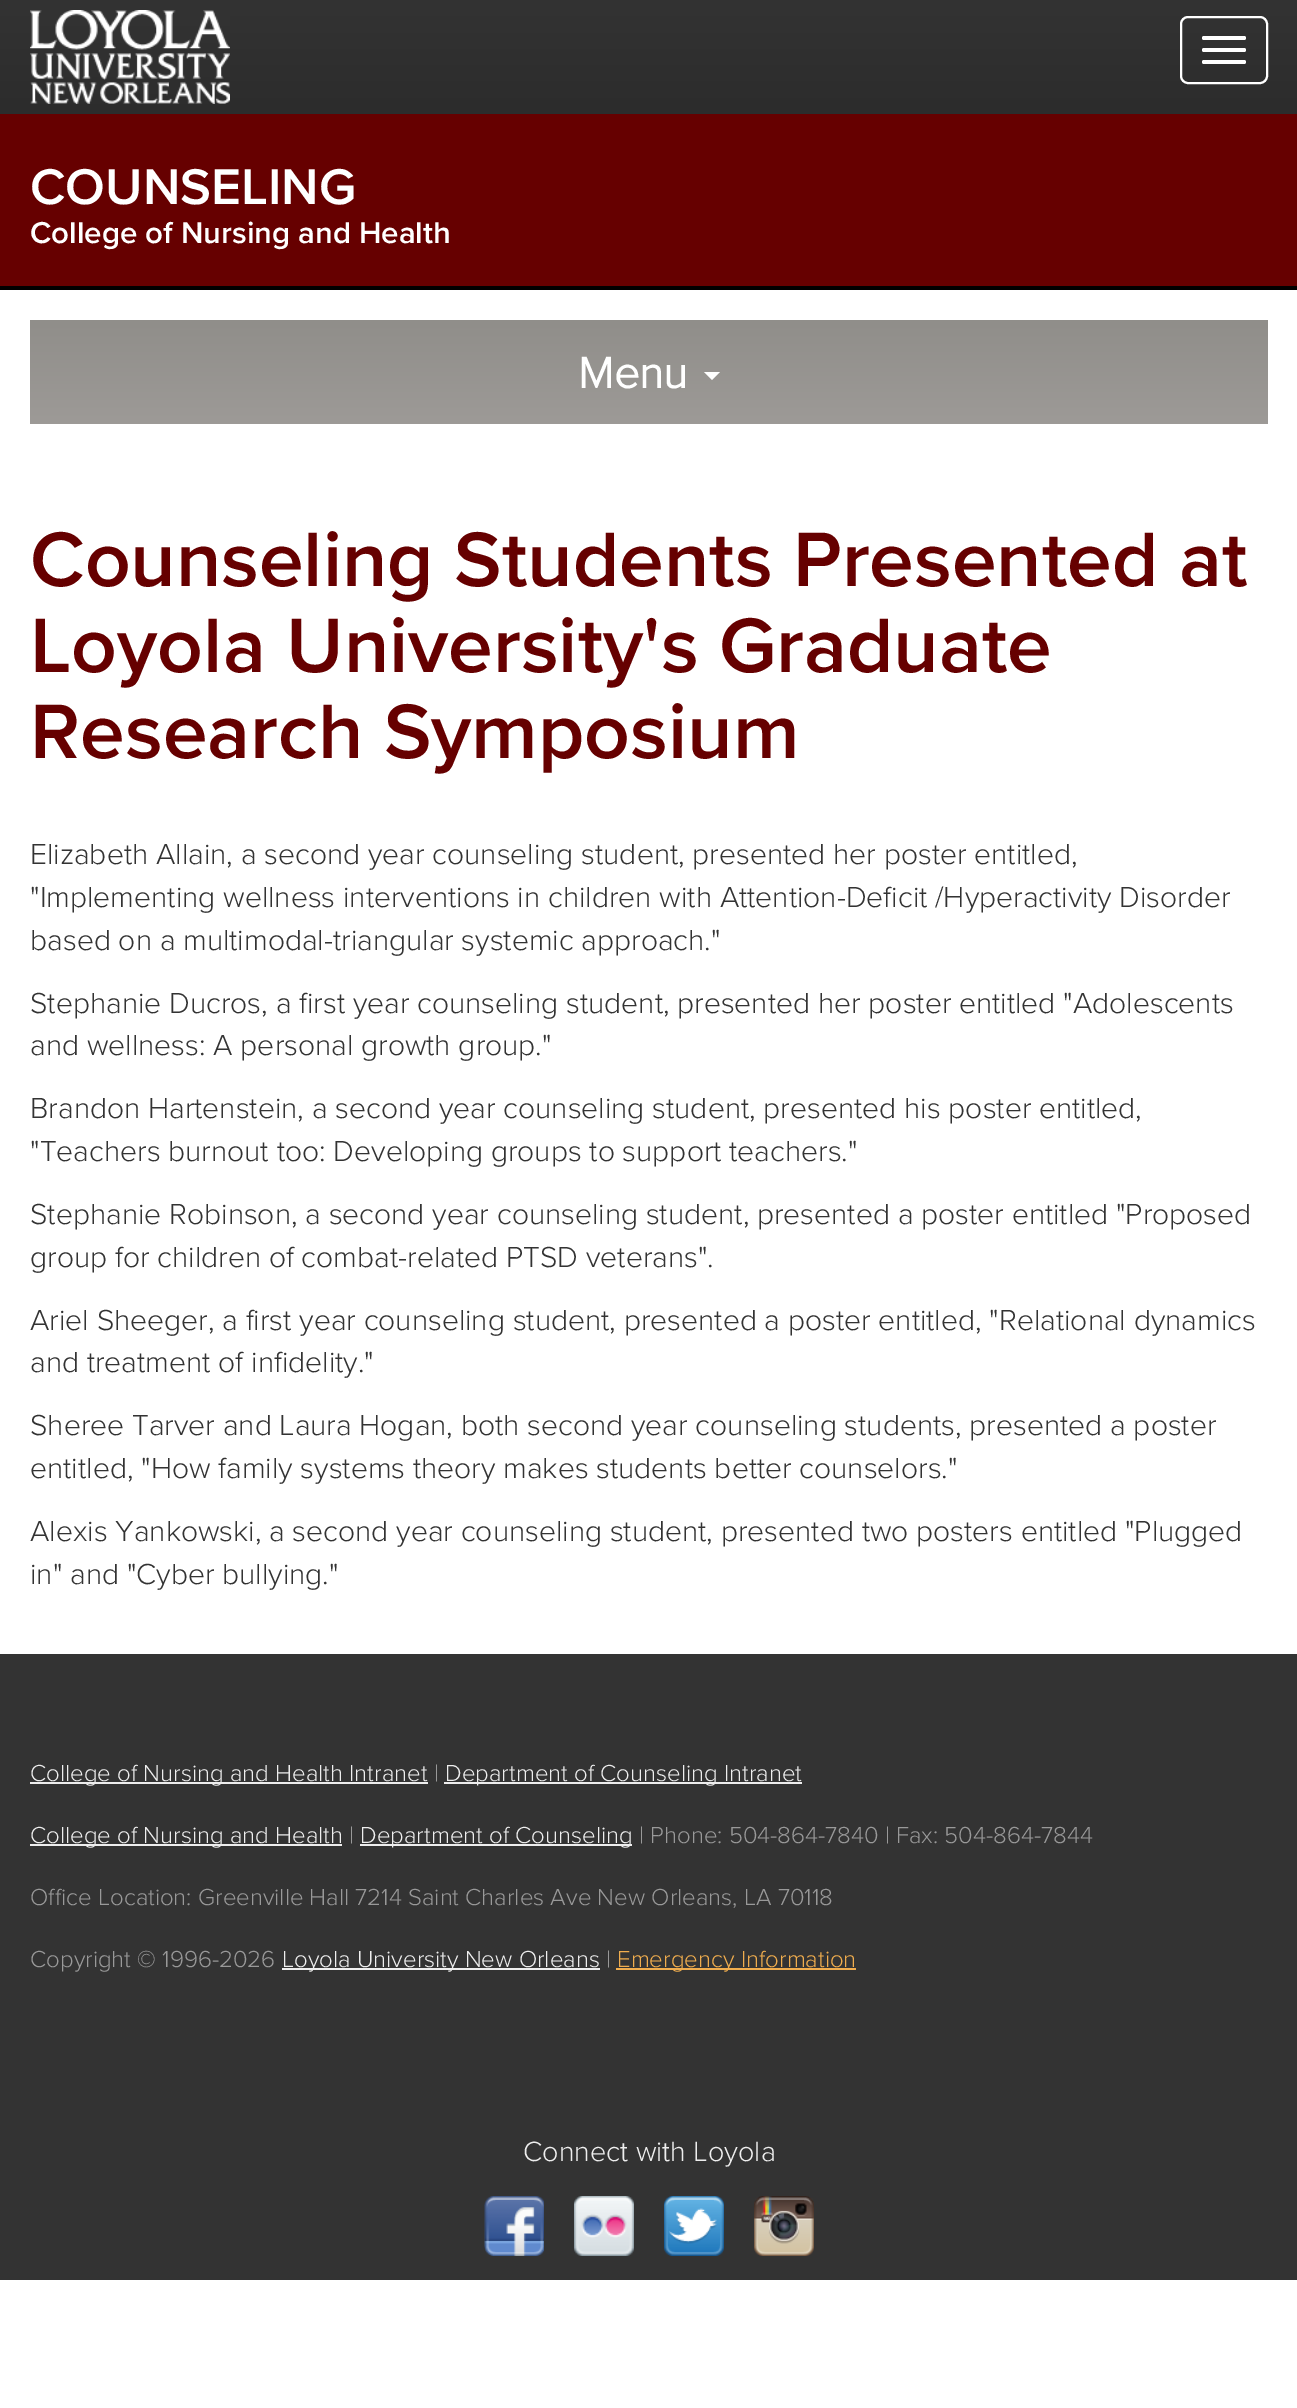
%!PS
<< /PageSize [1297 2408] >> setpagedevice
/roundrect { 5 dict begin { /r /h /w /y /x } { exch def } forall
  x r add y moveto x w add y 2 copy h add r arct x w add y h add x 1 index r arct
  x y h add x y r arct x y 2 copy exch w add exch r arct closepath end } def
/picture { 5 dict begin { /h /w /y /x /name } { exch def } forall
  gsave x y translate w h scale
  w h 8 [w 0 0 h 0 0] name (r) file false 3 colorimage grestore end } def
0 2408 translate 1 -1 scale
4 setmiterlimit
1 setgray
0 0 1297 2408 rectfill
gsave newpath 0 0 moveto 1297 0 lineto 1297 114 lineto 0 114 lineto closepath clip newpath
<< /ShadingType 2 /ColorSpace /DeviceRGB /Coords [649 0 649 290] /Extend [true true] /Function << /FunctionType 2 /Domain [0 1] /C0 [0.2 0.2 0.2] /C1 [0.133 0.133 0.133] /N 1 >> >> shfill grestore
(img1.rgb) 30 10 200 94 picture
2 setlinewidth
1181 17 86 66 7 roundrect stroke
1202 36 44 4 2 roundrect fill
1202 48 44 4 2 roundrect fill
1202 60 44 4 2 roundrect fill
0.4 0 0 setrgbcolor
0 114 1297 172 rectfill
0 setgray
0 286 1297 4 rectfill
/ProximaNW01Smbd-SemiBold [52 0 0 -52 0 0] selectfont
1 setgray
30 204 moveto (COUNSELING) show
/ProximaNW01Smbd-SemiBold [31.25 0 0 -31.25 0 0] selectfont
30 243 moveto (College of Nursing and Health) show
gsave newpath 30 320 moveto 1268 320 lineto 1268 424 lineto 30 424 lineto closepath clip newpath
<< /ShadingType 2 /ColorSpace /DeviceRGB /Coords [649 320 649 424] /Extend [true true] /Function << /FunctionType 2 /Domain [0 1] /C0 [0.565 0.557 0.541] /C1 [0.616 0.604 0.592] /N 1 >> >> shfill grestore
/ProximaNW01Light-Bold [45 0 0 -45 0 0] selectfont
578 388 moveto (Menu) show
newpath 704 372 moveto 720 372 lineto 712 380 lineto closepath fill
/ProximaNW01Smbd-SemiBold [80 0 0 -80 0 0] selectfont
0.4 0 0 setrgbcolor
30 586 moveto (Counseling Students Presented at) show
30 672 moveto (Loyola University's Graduate) show
30 758 moveto (Research Symposium) show
/ProximaNW01Light-Light [30 0 0 -30 0 0] selectfont
0.2 setgray
30 864 moveto (Elizabeth Allain, a second year counseling student, presented her poster entitled,) show
30 907 moveto ("Implementing wellness interventions in children with Attention-Deficit /Hyperactivity Disorder) show
30 950 moveto (based on a multimodal-triangular systemic approach.") show
30 1013 moveto (Stephanie Ducros, a first year counseling student, presented her poster entitled "Adolescents) show
30 1055 moveto (and wellness: A personal growth group.") show
30 1118 moveto (Brandon Hartenstein, a second year counseling student, presented his poster entitled,) show
30 1161 moveto ("Teachers burnout too: Developing groups to support teachers.") show
30 1224 moveto (Stephanie Robinson, a second year counseling student, presented a poster entitled "Proposed) show
30 1267 moveto (group for children of combat-related PTSD veterans".) show
30 1330 moveto (Ariel Sheeger, a first year counseling student, presented a poster entitled, "Relational dynamics) show
30 1372 moveto (and treatment of infidelity.") show
30 1435 moveto (Sheree Tarver and Laura Hogan, both second year counseling students, presented a poster) show
30 1478 moveto (entitled, "How family systems theory makes students better counselors.") show
30 1541 moveto (Alexis Yankowski, a second year counseling student, presented two posters entitled "Plugged) show
30 1584 moveto (in" and "Cyber bullying.") show
0 1654 1297 626 rectfill
0.933 setgray
30 1782 398 2 rectfill
/ProximaNW01Light-Light [24 0 0 -24 0 0] selectfont
30 1781 moveto (College of Nursing and Health Intranet) show
0.6 setgray
434 1781 moveto (|) show
0.933 setgray
444 1782 358 2 rectfill
445 1781 moveto (Department of Counseling Intranet) show
30 1844 312 2 rectfill
30 1843 moveto (College of Nursing and Health) show
0.6 setgray
349 1843 moveto (|) show
0.933 setgray
360 1844 272 2 rectfill
360 1843 moveto (Department of Counseling) show
0.6 setgray
639 1843 moveto (| Phone: 504-864-7840 | Fax: 504-864-7844) show
30 1905 moveto (Office Location: Greenville Hall 7214 Saint Charles Ave New Orleans, LA 70118) show
30 1967 moveto (Copyright © 1996-2026) show
0.933 setgray
282 1968 318 2 rectfill
282 1967 moveto (Loyola University New Orleans) show
0.6 setgray
606 1967 moveto (|) show
0.941 0.678 0.306 setrgbcolor
616 1968 240 2 rectfill
617 1967 moveto (Emergency Information) show
/ProximaNW01Light-Light [28.75 0 0 -28.75 0 0] selectfont
0.933 setgray
523 2161 moveto (Connect with Loyola) show
(img2.rgb) 484 2196 60 60 picture
(img3.rgb) 574 2196 60 60 picture
(img4.rgb) 664 2196 60 60 picture
(img5.rgb) 754 2196 60 60 picture
showpage
